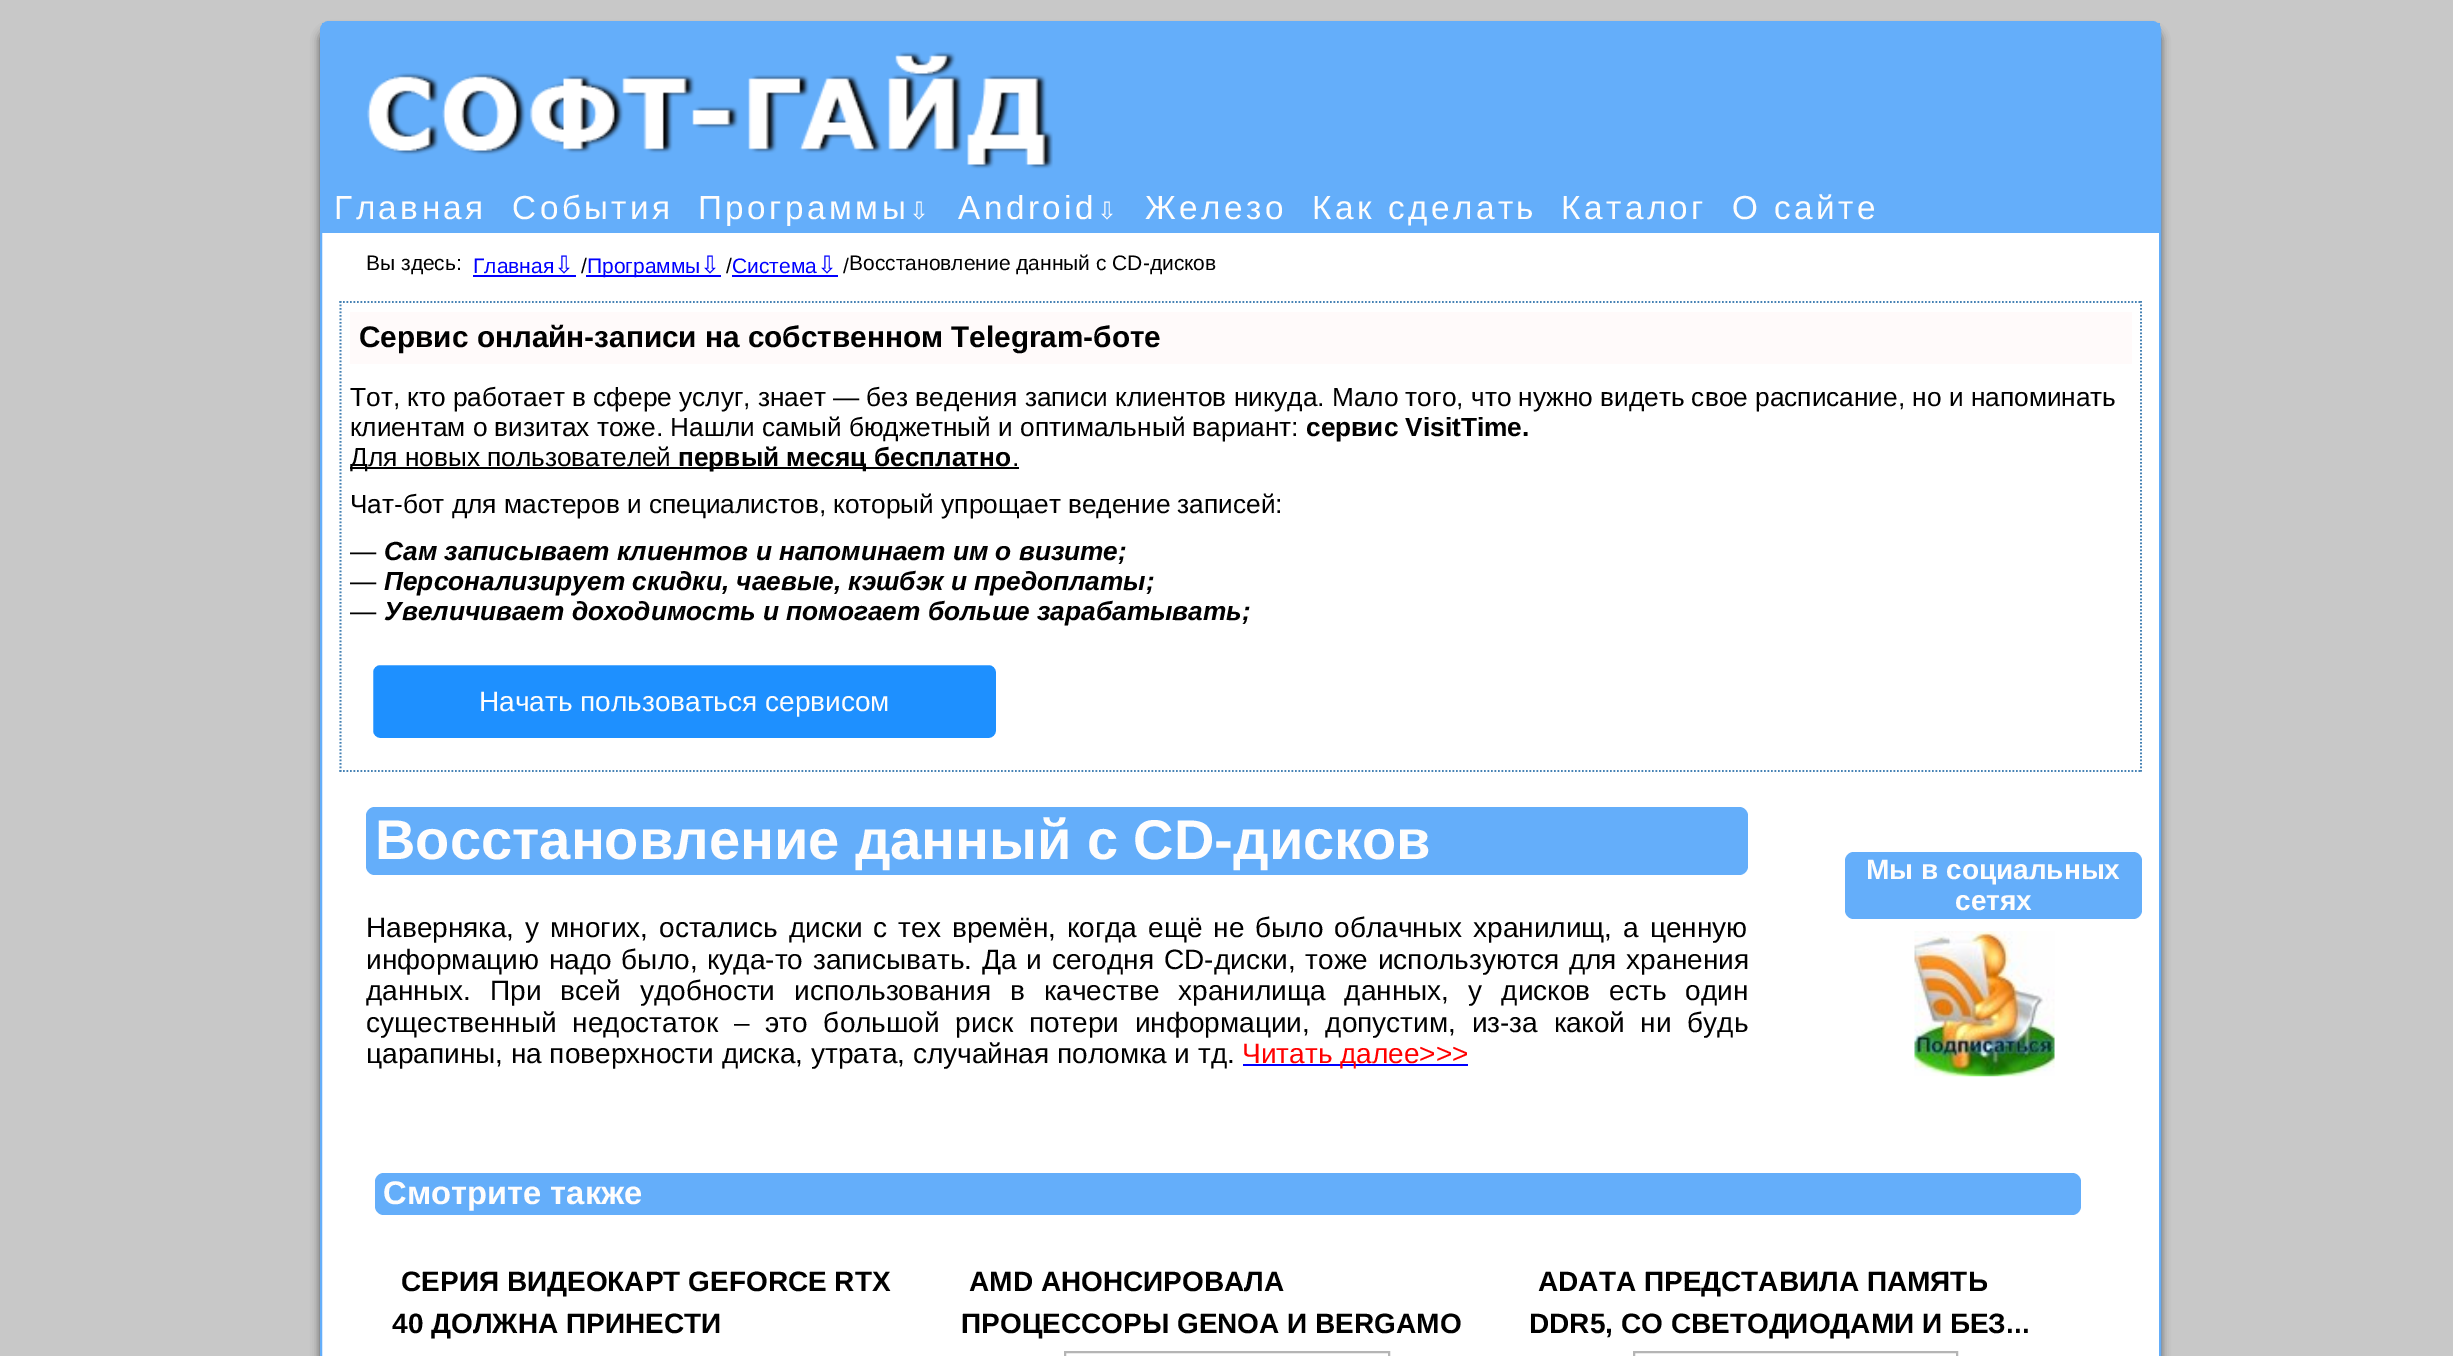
%!PS
<< /PageSize [2453 1356] /PageUsesTransparency true >> setpagedevice
/alpha { dup .setfillconstantalpha .setstrokeconstantalpha } def
/roundrect { 5 dict begin { /r /h /w /y /x } { exch def } forall
  x r add y moveto x w add y 2 copy h add r arct x w add y h add x 1 index r arct
  x y h add x y r arct x y 2 copy exch w add exch r arct closepath end } def
/shadow { 12 dict begin { /a /b /q /h /w /y /x } { exch def } forall gsave /was 0 def
  9 -2 -9 { dup b mul 4 div /e exch def 1 sub .425 mul 2.718 exch exp 1 add a .99 .min exch div /now exch def
    1 1 now sub 1 was sub div sub alpha /was now def
    w h .min e 2 mul add 0 gt { x e sub y e sub w e 2 mul add h e 2 mul add
      q e add b .6 mul add w h .min 2 div e add .min 0 .max roundrect fill } if } for grestore end } def
/picture { 5 dict begin { /h /w /y /x /name } { exch def } forall
  gsave x y translate w h scale
  w h 8 [w 0 0 h 0 0] name (r) file false 3 colorimage grestore end } def
0 .pushpdf14devicefilter
0 1356 translate 1 -1 scale
4 setmiterlimit
0.784 setgray
0 0 2453 1356 rectfill
0.333 setgray
320 30 1841 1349 9 4.5 1 shadow
1 setgray
321 22 1839 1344 8 roundrect gsave fill grestore
0.392 0.682 0.98 setrgbcolor
2 setlinewidth
stroke
322 23 1838 157 rectfill
(img1.rgb) 367 52 686 117 picture
322 180 1837 53 rectfill
/LiberationSans-Regular [33.25 0 0 -33.25 0 0] selectfont
0.996 0.992 0.992 setrgbcolor
334 219 moveto 3.5 0 (Главная) ashow
512 219 moveto 3.5 0 (События) ashow
698 219 moveto 3.5 0 (Программы) ashow
/DejaVuSans-Regular [24 0 0 -24 0 0] selectfont
909 219 moveto 3.5 0 (⇩) ashow
/LiberationSans-Regular [33.25 0 0 -33.25 0 0] selectfont
958 219 moveto 3.5 0 (Android) ashow
/DejaVuSans-Regular [24 0 0 -24 0 0] selectfont
1097 219 moveto 3.5 0 (⇩) ashow
/LiberationSans-Regular [33.25 0 0 -33.25 0 0] selectfont
1145 219 moveto 3.5 0 (Железо) ashow
1312 219 moveto 3.5 0 (Как сделать) ashow
1561 219 moveto 3.5 0 (Каталог) ashow
1732 219 moveto 3.5 0 (О сайте) ashow
/LiberationSans-Regular [21 0 0 -21 0 0] selectfont
0 setgray
366 270 moveto (Вы здесь:) show
0 0 1 setrgbcolor
473 273 moveto (Главная) show
473 275 103 2 rectfill
/DejaVuSans-Regular [24 0 0 -24 0 0] selectfont
554 273 moveto (⇩) show
/LiberationSans-Regular [21 0 0 -21 0 0] selectfont
0 setgray
581 273 moveto (/) show
0 0 1 setrgbcolor
586 275 135 2 rectfill
587 273 moveto (Программы) show
/DejaVuSans-Regular [24 0 0 -24 0 0] selectfont
700 273 moveto (⇩) show
/LiberationSans-Regular [21 0 0 -21 0 0] selectfont
0 setgray
726 273 moveto (/) show
0 0 1 setrgbcolor
732 273 moveto (Система) show
732 275 106 2 rectfill
/DejaVuSans-Regular [24 0 0 -24 0 0] selectfont
817 273 moveto (⇩) show
/LiberationSans-Regular [21 0 0 -21 0 0] selectfont
0 setgray
843 273 moveto (/) show
849 270 moveto (Восстановление данный с СD-дисков) show
0.275 0.51 0.706 setrgbcolor
1.8 setlinewidth
[1.75 1.75] 0 setdash
newpath 339.5 302 moveto 2142 302 lineto stroke
newpath 2141 301 moveto 2141 772 lineto stroke
newpath 339.5 771 moveto 2142 771 lineto stroke
newpath 340.5 301 moveto 340.5 772 lineto stroke
1 0.98 0.98 setrgbcolor
350 312 1782 52 rectfill
/LiberationSans-Bold [29.75 0 0 -29.75 0 0] selectfont
0 setgray
359 347 moveto (Сервис онлайн-записи на собственном Telegram-боте) show
/LiberationSans-Regular [26.25 0 0 -26.25 0 0] selectfont
350 406 moveto (Тот, кто работает в сфере услуг, знает — без ведения записи клиентов никуда. Мало того, что нужно видеть свое расписание, но и напоминать) show
350 436 moveto (клиентам о визитах тоже. Нашли самый бюджетный и оптимальный вариант:) show
/LiberationSans-Bold [26.25 0 0 -26.25 0 0] selectfont
1306 436 moveto (сервис VisitTime.) show
350 467 669 2 rectfill
/LiberationSans-Regular [26.25 0 0 -26.25 0 0] selectfont
350 466 moveto (Для новых пользователей) show
/LiberationSans-Bold [26.25 0 0 -26.25 0 0] selectfont
678 466 moveto (первый месяц бесплатно) show
/LiberationSans-Regular [26.25 0 0 -26.25 0 0] selectfont
1012 466 moveto (.) show
350 513 moveto (Чат-бот для мастеров и специалистов, который упрощает ведение записей:) show
350 560 moveto (—) show
/LiberationSans-BoldItalic [26.25 0 0 -26.25 0 0] selectfont
384 560 moveto (Сам записывает клиентов и напоминает им о визите;) show
/LiberationSans-Regular [26.25 0 0 -26.25 0 0] selectfont
350 590 moveto (—) show
/LiberationSans-BoldItalic [26.25 0 0 -26.25 0 0] selectfont
384 590 moveto (Персонализирует скидки, чаевые, кэшбэк и предоплаты;) show
/LiberationSans-Regular [26.25 0 0 -26.25 0 0] selectfont
350 620 moveto (—) show
/LiberationSans-BoldItalic [26.25 0 0 -26.25 0 0] selectfont
384 620 moveto (Увеличивает доходимость и помогает больше зарабатывать;) show
0.118 0.565 1 setrgbcolor
372 664 625 75 8 roundrect gsave fill grestore
1 setgray
2 setlinewidth
[] 0 setdash
stroke
/LiberationSans-Regular [28 0 0 -28 0 0] selectfont
0.996 0.992 0.992 setrgbcolor
479 711 moveto (Начать пользоваться сервисом) show
0.392 0.682 0.98 setrgbcolor
366 807 1382 68 9 roundrect fill
/LiberationSans-Bold [56 0 0 -56 0 0] selectfont
0.996 0.992 0.992 setrgbcolor
375 859 moveto (Восстановление данный с СD-дисков) show
/LiberationSans-Regular [28 0 0 -28 0 0] selectfont
0 setgray
366 937 moveto 3.25 0 32 (Наверняка, у многих, остались диски с тех времён, когда ещё не было облачных хранилищ, а ценную) widthshow
366 969 moveto 2.1 0 32 (информацию надо было, куда-то записывать. Да и сегодня СD-диски, тоже используются для хранения) widthshow
366 1000 moveto 11.4 0 32 (данных. При всей удобности использования в качестве хранилища данных, у дисков есть один) widthshow
366 1032 moveto 7.9 0 32 (существенный недостаток – это большой риск потери информации, допустим, из-за какой ни будь) widthshow
366 1063 moveto (царапины, на поверхности диска, утрата, случайная поломка и тд.) show
0 0 1 setrgbcolor
1243 1064 225 2 rectfill
1 0 0 setrgbcolor
1242 1063 moveto (Читать далее>>>) show
0.392 0.682 0.98 setrgbcolor
1845 852 297 67 9 roundrect fill
/LiberationSans-Bold [28 0 0 -28 0 0] selectfont
0.996 0.992 0.992 setrgbcolor
1866 879 moveto (Мы в социальных) show
1955 910 moveto (сетях) show
(img2.rgb) 1914 931 141 146 picture
0.392 0.682 0.98 setrgbcolor
375 1173 1706 42 9 roundrect fill
/LiberationSans-Bold [32.75 0 0 -32.75 0 0] selectfont
0.996 0.992 0.992 setrgbcolor
383 1204 moveto (Смотрите также) show
/LiberationSans-Bold [28 0 0 -28 0 0] selectfont
0 setgray
401 1291 moveto (СЕРИЯ ВИДЕОКАРТ GEFORCE RTX) show
392 1333 moveto (40 ДОЛЖНА ПРИНЕСТИ) show
969 1291 moveto (AMD АНОНСИРОВАЛА) show
961 1333 moveto (ПРОЦЕССОРЫ GENOA И BERGAMO) show
0.71 setgray
1065 1352 324 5 rectstroke
0 setgray
1538 1291 moveto (ADATA ПРЕДСТАВИЛА ПАМЯТЬ) show
1529 1333 moveto (DDR5, СО СВЕТОДИОДАМИ И БЕЗ...) show
0.71 setgray
1634 1352 323 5 rectstroke
.poppdf14devicefilter showpage
